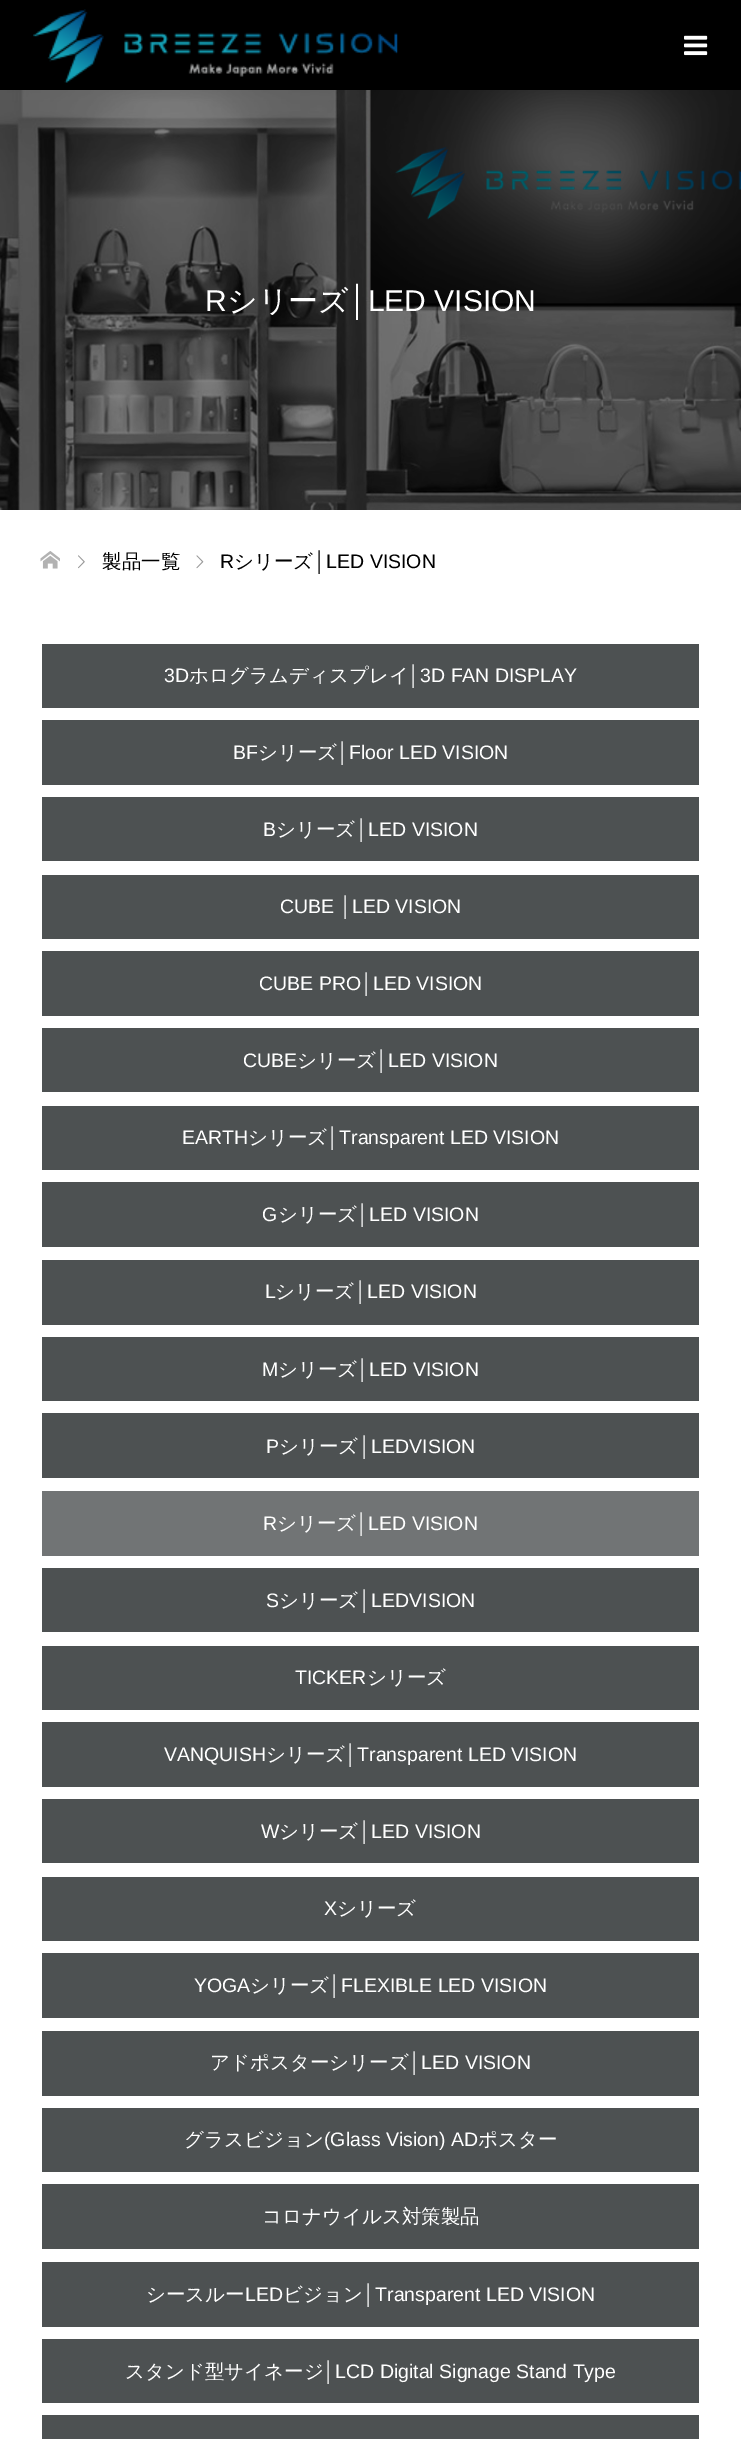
%!PS
<< /PageSize [741 2439] >> setpagedevice
/picture { 5 dict begin { /h /w /y /x /name } { exch def } forall
  gsave x y translate w h scale
  w h 8 [w 0 0 h 0 0] name (r) file false 3 colorimage grestore end } def
0 2439 translate 1 -1 scale
4 setmiterlimit
1 setgray
0 0 741 2439 rectfill
0 setgray
0 0 741 90 rectfill
(img1.rgb) 33 9 365 74 picture
(img2.rgb) 684 35 24 21 picture
(img3.rgb) 0 90 741 420 picture
/LiberationSans-Regular [30 0 0 -30 0 0] selectfont
1 setgray
205 311 moveto (R) show
/WenQuanYiZenHei-Medium [30 0 0 -30 0 0] selectfont
227 311 moveto (シリーズ) show
/LiberationSans-Regular [30 0 0 -30 0 0] selectfont
349 311 moveto (│LED VISION) show
(img4.rgb) 40 551 20 18 picture
(img5.rgb) 78 555 7 14 picture
/WenQuanYiZenHei-Medium [19.5 0 0 -19.5 0 0] selectfont
0 setgray
102 568 moveto (製品一覧) show
(img6.rgb) 196 555 8 14 picture
/LiberationSans-Regular [19.5 0 0 -19.5 0 0] selectfont
220 568 moveto (R) show
/WenQuanYiZenHei-Medium [19.5 0 0 -19.5 0 0] selectfont
234 568 moveto (シリーズ) show
/LiberationSans-Regular [19.5 0 0 -19.5 0 0] selectfont
314 568 moveto (│LED VISION) show
0.302 0.318 0.322 setrgbcolor
42 644 657 64 rectfill
1 setgray
164 682 moveto (3D) show
/WenQuanYiZenHei-Medium [19.5 0 0 -19.5 0 0] selectfont
189 682 moveto (ホログラムディスプレイ) show
/LiberationSans-Regular [19.5 0 0 -19.5 0 0] selectfont
408 682 moveto (│3D FAN DISPLAY) show
0.302 0.318 0.322 setrgbcolor
42 720 657 65 rectfill
1 setgray
233 759 moveto (BF) show
/WenQuanYiZenHei-Medium [19.5 0 0 -19.5 0 0] selectfont
258 759 moveto (シリーズ) show
/LiberationSans-Regular [19.5 0 0 -19.5 0 0] selectfont
337 759 moveto (│Floor LED VISION) show
0.302 0.318 0.322 setrgbcolor
42 797 657 64 rectfill
1 setgray
263 836 moveto (B) show
/WenQuanYiZenHei-Medium [19.5 0 0 -19.5 0 0] selectfont
276 836 moveto (シリーズ) show
/LiberationSans-Regular [19.5 0 0 -19.5 0 0] selectfont
356 836 moveto (│LED VISION) show
0.302 0.318 0.322 setrgbcolor
42 875 657 64 rectfill
1 setgray
280 913 moveto (CUBE │LED VISION) show
0.302 0.318 0.322 setrgbcolor
42 951 657 65 rectfill
1 setgray
259 990 moveto (CUBE PRO│LED VISION) show
0.302 0.318 0.322 setrgbcolor
42 1028 657 64 rectfill
1 setgray
243 1067 moveto (CUBE) show
/WenQuanYiZenHei-Medium [19.5 0 0 -19.5 0 0] selectfont
297 1067 moveto (シリーズ) show
/LiberationSans-Regular [19.5 0 0 -19.5 0 0] selectfont
376 1067 moveto (│LED VISION) show
0.302 0.318 0.322 setrgbcolor
42 1106 657 64 rectfill
1 setgray
182 1144 moveto (EARTH) show
/WenQuanYiZenHei-Medium [19.5 0 0 -19.5 0 0] selectfont
248 1144 moveto (シリーズ) show
/LiberationSans-Regular [19.5 0 0 -19.5 0 0] selectfont
327 1144 moveto (│Transparent LED VISION) show
0.302 0.318 0.322 setrgbcolor
42 1182 657 65 rectfill
1 setgray
262 1221 moveto (G) show
/WenQuanYiZenHei-Medium [19.5 0 0 -19.5 0 0] selectfont
278 1221 moveto (シリーズ) show
/LiberationSans-Regular [19.5 0 0 -19.5 0 0] selectfont
357 1221 moveto (│LED VISION) show
0.302 0.318 0.322 setrgbcolor
42 1260 657 65 rectfill
1 setgray
265 1298 moveto (L) show
/WenQuanYiZenHei-Medium [19.5 0 0 -19.5 0 0] selectfont
275 1298 moveto (シリーズ) show
/LiberationSans-Regular [19.5 0 0 -19.5 0 0] selectfont
355 1298 moveto (│LED VISION) show
0.302 0.318 0.322 setrgbcolor
42 1337 657 64 rectfill
1 setgray
262 1376 moveto (M) show
/WenQuanYiZenHei-Medium [19.5 0 0 -19.5 0 0] selectfont
278 1376 moveto (シリーズ) show
/LiberationSans-Regular [19.5 0 0 -19.5 0 0] selectfont
357 1376 moveto (│LED VISION) show
0.302 0.318 0.322 setrgbcolor
42 1413 657 65 rectfill
1 setgray
266 1453 moveto (P) show
/WenQuanYiZenHei-Medium [19.5 0 0 -19.5 0 0] selectfont
279 1453 moveto (シリーズ) show
/LiberationSans-Regular [19.5 0 0 -19.5 0 0] selectfont
359 1453 moveto (│LEDVISION) show
0.443 0.455 0.459 setrgbcolor
42 1491 657 65 rectfill
1 setgray
263 1530 moveto (R) show
/WenQuanYiZenHei-Medium [19.5 0 0 -19.5 0 0] selectfont
277 1530 moveto (シリーズ) show
/LiberationSans-Regular [19.5 0 0 -19.5 0 0] selectfont
356 1530 moveto (│LED VISION) show
0.302 0.318 0.322 setrgbcolor
42 1568 657 64 rectfill
1 setgray
266 1607 moveto (S) show
/WenQuanYiZenHei-Medium [19.5 0 0 -19.5 0 0] selectfont
279 1607 moveto (シリーズ) show
/LiberationSans-Regular [19.5 0 0 -19.5 0 0] selectfont
359 1607 moveto (│LEDVISION) show
0.302 0.318 0.322 setrgbcolor
42 1646 657 64 rectfill
1 setgray
295 1684 moveto (TICKER) show
/WenQuanYiZenHei-Medium [19.5 0 0 -19.5 0 0] selectfont
367 1684 moveto (シリーズ) show
0.302 0.318 0.322 setrgbcolor
42 1722 657 65 rectfill
/LiberationSans-Regular [19.5 0 0 -19.5 0 0] selectfont
1 setgray
164 1761 moveto (VANQUISH) show
/WenQuanYiZenHei-Medium [19.5 0 0 -19.5 0 0] selectfont
266 1761 moveto (シリーズ) show
/LiberationSans-Regular [19.5 0 0 -19.5 0 0] selectfont
345 1761 moveto (│Transparent LED VISION) show
0.302 0.318 0.322 setrgbcolor
42 1799 657 64 rectfill
1 setgray
261 1838 moveto (W) show
/WenQuanYiZenHei-Medium [19.5 0 0 -19.5 0 0] selectfont
279 1838 moveto (シリーズ) show
/LiberationSans-Regular [19.5 0 0 -19.5 0 0] selectfont
359 1838 moveto (│LED VISION) show
0.302 0.318 0.322 setrgbcolor
42 1877 657 64 rectfill
1 setgray
324 1915 moveto (X) show
/WenQuanYiZenHei-Medium [19.5 0 0 -19.5 0 0] selectfont
337 1915 moveto (シリーズ) show
0.302 0.318 0.322 setrgbcolor
42 1953 657 65 rectfill
/LiberationSans-Regular [19.5 0 0 -19.5 0 0] selectfont
1 setgray
194 1992 moveto (YOGA) show
/WenQuanYiZenHei-Medium [19.5 0 0 -19.5 0 0] selectfont
250 1992 moveto (シリーズ) show
/LiberationSans-Regular [19.5 0 0 -19.5 0 0] selectfont
329 1992 moveto (│FLEXIBLE LED VISION) show
0.302 0.318 0.322 setrgbcolor
42 2031 657 65 rectfill
/WenQuanYiZenHei-Medium [19.5 0 0 -19.5 0 0] selectfont
1 setgray
210 2069 moveto (アドポスターシリーズ) show
/LiberationSans-Regular [19.5 0 0 -19.5 0 0] selectfont
409 2069 moveto (│LED VISION) show
0.302 0.318 0.322 setrgbcolor
42 2108 657 64 rectfill
/WenQuanYiZenHei-Medium [19.5 0 0 -19.5 0 0] selectfont
1 setgray
184 2146 moveto (グラスビジョン) show
/LiberationSans-Regular [19.5 0 0 -19.5 0 0] selectfont
324 2146 moveto (\(Glass Vision\) AD) show
/WenQuanYiZenHei-Medium [19.5 0 0 -19.5 0 0] selectfont
478 2146 moveto (ポスター) show
0.302 0.318 0.322 setrgbcolor
42 2184 657 65 rectfill
1 setgray
262 2223 moveto (コロナウイルス対策製品) show
0.302 0.318 0.322 setrgbcolor
42 2262 657 65 rectfill
1 setgray
146 2301 moveto (シースルー) show
/LiberationSans-Regular [19.5 0 0 -19.5 0 0] selectfont
245 2301 moveto (LED) show
/WenQuanYiZenHei-Medium [19.5 0 0 -19.5 0 0] selectfont
283 2301 moveto (ビジョン) show
/LiberationSans-Regular [19.5 0 0 -19.5 0 0] selectfont
363 2301 moveto (│Transparent LED VISION) show
0.302 0.318 0.322 setrgbcolor
42 2339 657 64 rectfill
/WenQuanYiZenHei-Medium [19.5 0 0 -19.5 0 0] selectfont
1 setgray
125 2378 moveto (スタンド型サイネージ) show
/LiberationSans-Regular [19.5 0 0 -19.5 0 0] selectfont
323 2378 moveto (│LCD Digital Signage Stand Type) show
0.302 0.318 0.322 setrgbcolor
42 2415 657 24 rectfill
showpage
